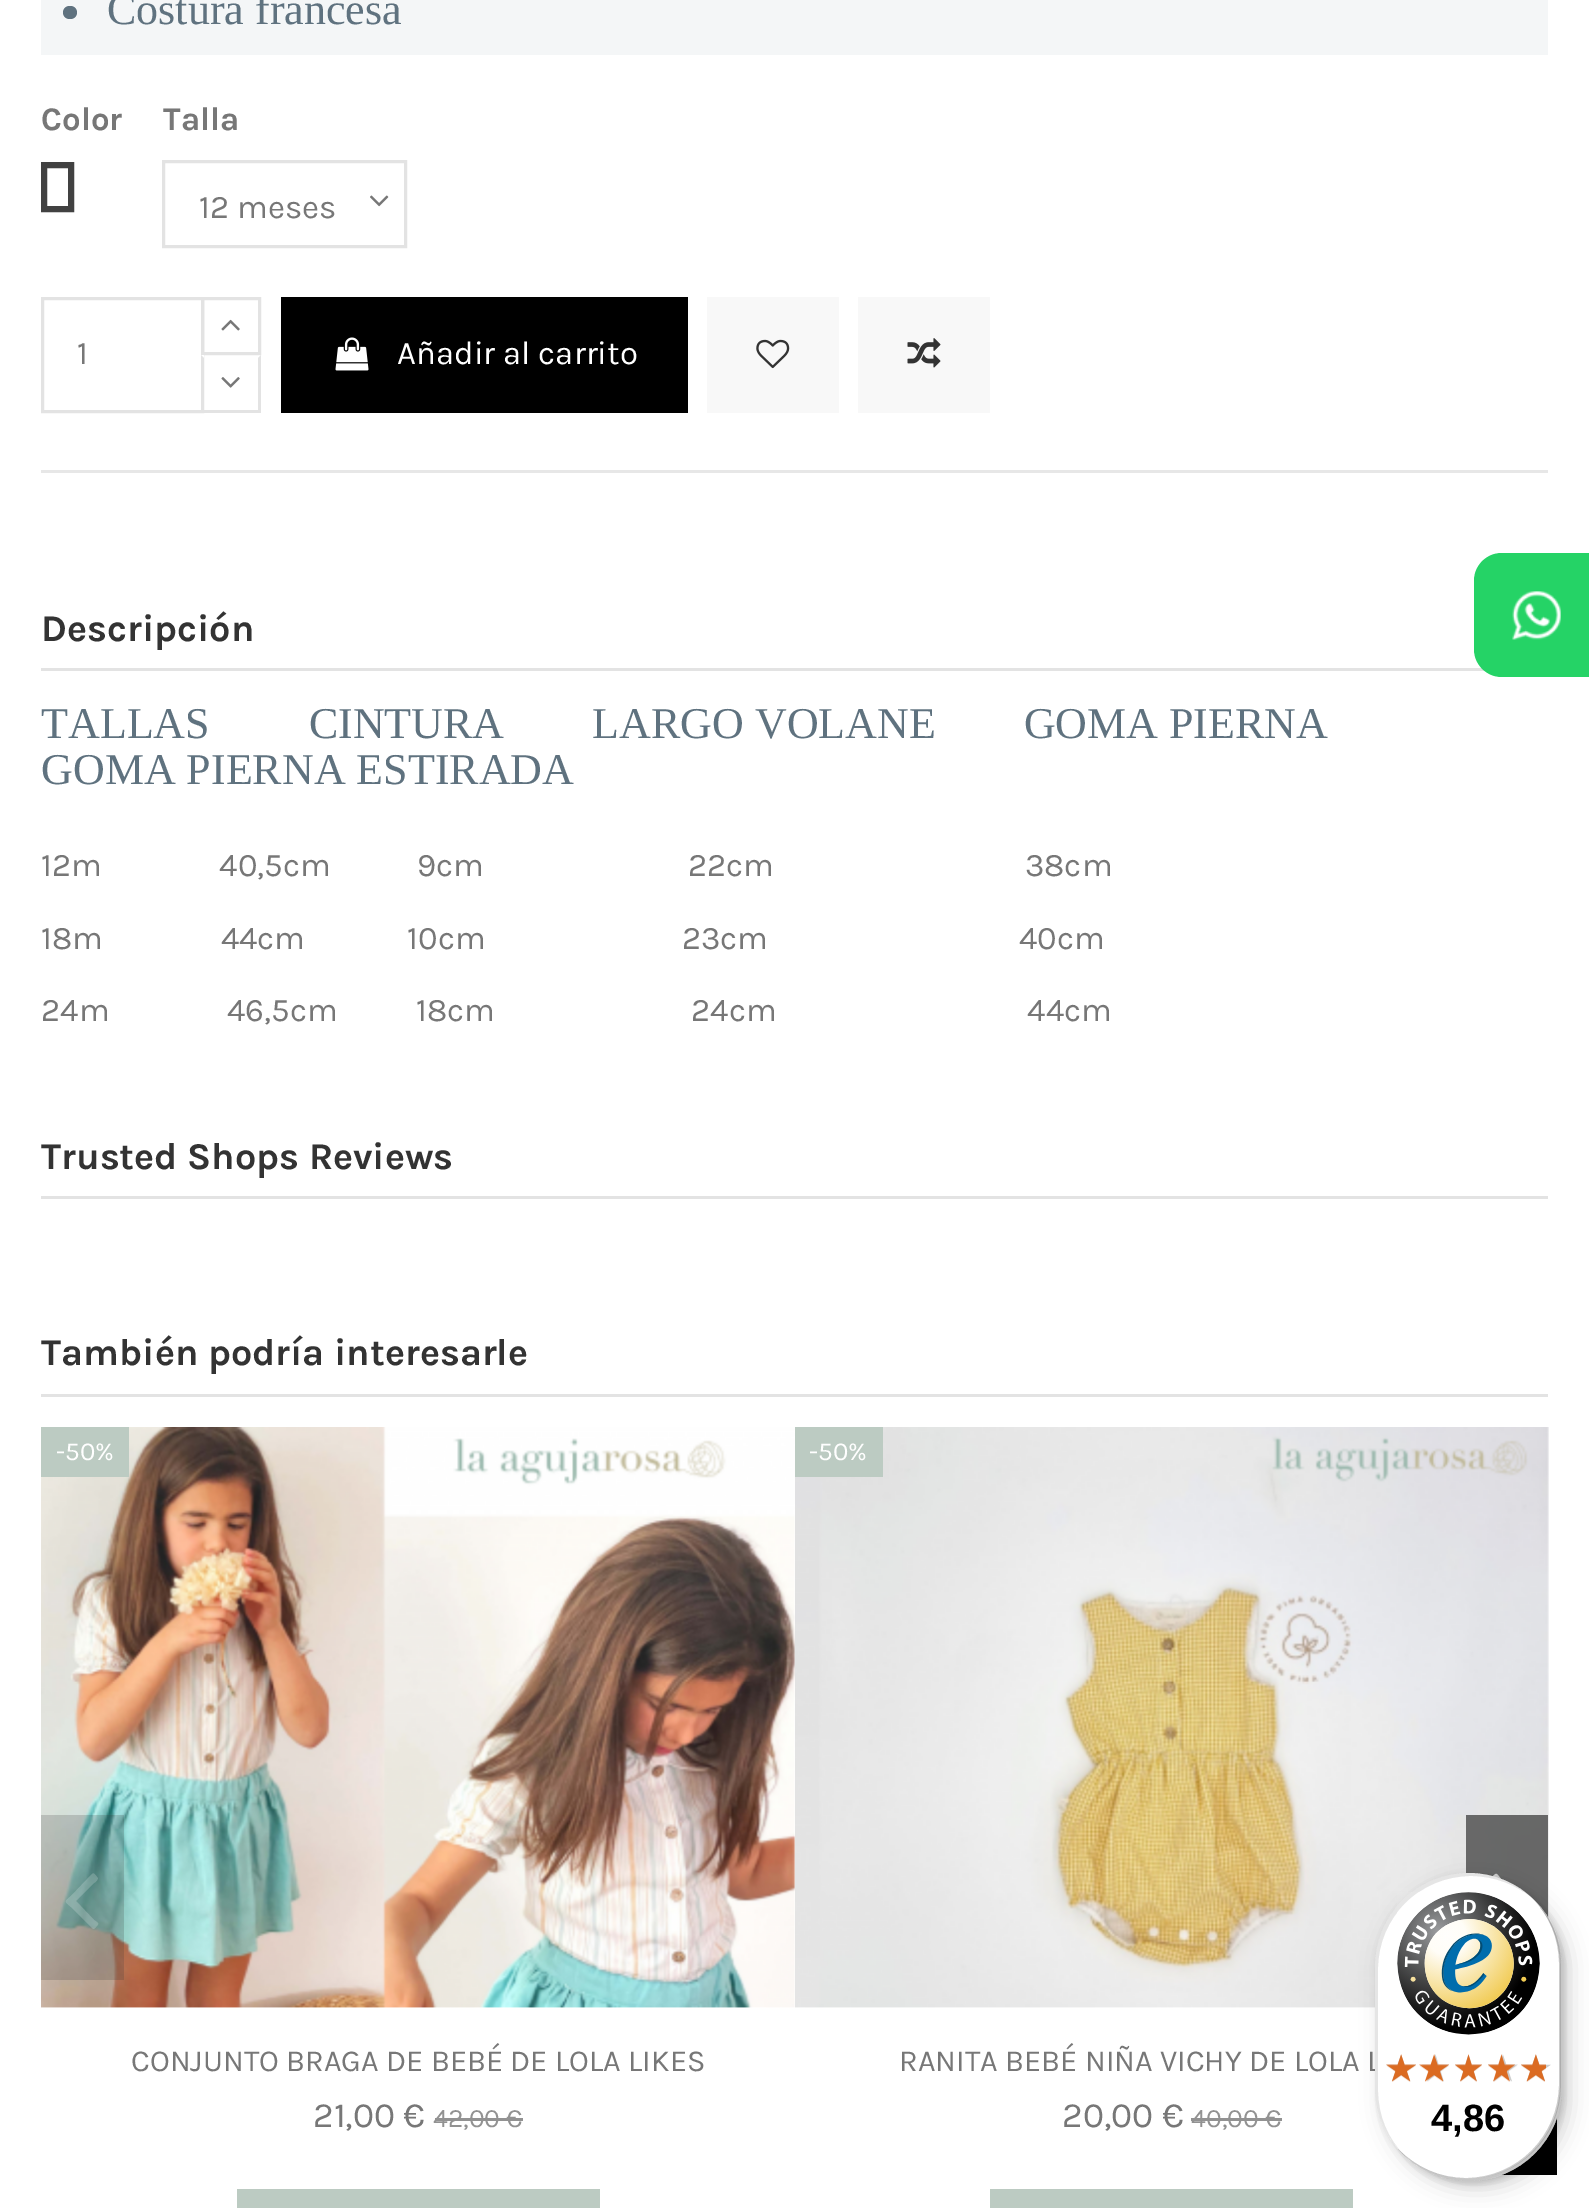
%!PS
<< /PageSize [1589 2208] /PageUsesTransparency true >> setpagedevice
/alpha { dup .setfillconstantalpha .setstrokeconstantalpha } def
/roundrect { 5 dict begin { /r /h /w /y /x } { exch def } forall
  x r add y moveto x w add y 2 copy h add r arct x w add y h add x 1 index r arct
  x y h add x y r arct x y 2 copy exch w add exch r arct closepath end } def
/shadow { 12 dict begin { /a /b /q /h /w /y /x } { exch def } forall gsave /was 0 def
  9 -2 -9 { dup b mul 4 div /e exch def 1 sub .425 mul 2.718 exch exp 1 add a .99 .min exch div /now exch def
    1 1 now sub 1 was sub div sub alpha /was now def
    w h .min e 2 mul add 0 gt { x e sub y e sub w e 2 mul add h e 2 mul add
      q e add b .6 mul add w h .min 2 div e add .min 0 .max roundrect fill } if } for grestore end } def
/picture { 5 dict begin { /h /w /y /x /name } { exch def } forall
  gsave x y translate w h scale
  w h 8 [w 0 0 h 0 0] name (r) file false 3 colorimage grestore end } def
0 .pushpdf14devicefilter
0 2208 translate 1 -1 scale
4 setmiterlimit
1 setgray
0 0 1589 2208 rectfill
0.957 0.965 0.969 setrgbcolor
41 0 1507 55 rectfill
0.373 0.447 0.498 setrgbcolor
63 6 14 13 6.5 roundrect fill
/LiberationSerif-Regular [44 0 0 -44 0 0] selectfont
107 24 moveto (Costura francesa) show
/Karla-Bold [33 0 0 -33 0 0] selectfont
0.467 setgray
41 130 moveto (Color) show
0.255 setgray
6 setlinewidth
44 165 27 44 rectstroke
0.467 setgray
163 130 moveto (Talla) show
(img1.rgb) 370 195 19 12 picture
0.89 setgray
3 setlinewidth
163.5 161.5 242 85 rectstroke
/Karla-Regular [33 0 0 -33 0 0] selectfont
0.467 setgray
199 218 moveto (12 meses) show
0.89 setgray
42.5 298.5 160 113 rectstroke
0.467 setgray
77 364 moveto (1) show
0.89 setgray
202.5 298.5 57 55 rectstroke
(img2.rgb) 221 319 19 12 picture
1 setgray
201 355 3 55 rectfill
0.89 setgray
newpath 261 355 moveto 261 412 lineto 258 410 lineto 258 358 lineto closepath fill
201 410 60 3 rectfill
newpath 201 412 moveto 201 355 lineto 204 358 lineto 204 410 lineto closepath fill
(img3.rgb) 221 377 19 11 picture
0 setgray
281 297 407 116 rectfill
(img4.rgb) 335 337 34 34 picture
1 setgray
397 364 moveto (Añadir al carrito) show
0.973 setgray
707 297 132 116 rectfill
(img5.rgb) 756 339 34 30 picture
858 297 132 116 rectfill
(img6.rgb) 907 338 34 30 picture
0.906 setgray
41 470 1507 3 rectfill
0.89 setgray
41 668 1444 3 rectfill
/Karla-Bold [37.75 0 0 -37.75 0 0] selectfont
0.2 setgray
41 641 moveto (Descripción) show
/LiberationSerif-Regular [44 0 0 -44 0 0] selectfont
0.373 0.447 0.498 setrgbcolor
41 738 moveto (TALLAS         CINTURA        LARGO VOLANE        GOMA PIERNA) show
41 784 moveto (GOMA PIERNA ESTIRADA) show
/Karla-Regular [33 0 0 -33 0 0] selectfont
0.467 setgray
41 876 moveto (12m               40,5cm           9cm                          22cm                                38cm) show
41 949 moveto (18m               44cm             10cm                         23cm                                40cm) show
41 1021 moveto (24m               46,5cm          18cm                         24cm                                44cm) show
0.89 setgray
41 1196 1507 3 rectfill
/Karla-Bold [37.75 0 0 -37.75 0 0] selectfont
0.2 setgray
41 1169 moveto (Trusted Shops Reviews) show
0.89 setgray
41 1394 1507 3 rectfill
0.2 setgray
41 1365 moveto (También podría interesarle) show
(img7.rgb) 41 1427 754 581 picture
0.737 0.796 0.761 setrgbcolor
41 1427 88 50 rectfill
/Karla-Regular [26 0 0 -26 0 0] selectfont
1 setgray
56 1460 moveto (-50%) show
/Karla-Regular [30.6 0 0 -30.6 0 0] selectfont
0.467 setgray
131 2071 moveto (CONJUNTO BRAGA DE BEBÉ DE LOLA LIKES) show
/Karla-Regular [35.5 0 0 -35.5 0 0] selectfont
313 2127 moveto (21,00 €) show
/Karla-Regular [26.5 0 0 -26.5 0 0] selectfont
0.573 setgray
433 2127 moveto (42,00 €) show
435 2118 88 3 rectfill
0.737 0.796 0.761 setrgbcolor
237 2189 363 19 rectfill
(img8.rgb) 795 1427 754 581 picture
795 1427 88 50 rectfill
/Karla-Regular [26 0 0 -26 0 0] selectfont
1 setgray
809 1460 moveto (-50%) show
/Karla-Regular [30.6 0 0 -30.6 0 0] selectfont
0.467 setgray
899 2071 moveto (RANITA BEBÉ NIÑA VICHY DE LOLA L) show
/Karla-Regular [35.5 0 0 -35.5 0 0] selectfont
1062 2127 moveto (20,00 €) show
/Karla-Regular [26.5 0 0 -26.5 0 0] selectfont
0.573 setgray
1191 2127 moveto (40,00 €) show
1191 2118 91 3 rectfill
0.737 0.796 0.761 setrgbcolor
990 2189 363 19 rectfill
0.2 alpha
0.2 setgray
41 1815 83 165 rectfill
1 setgray
newpath 97 1877 moveto 100 1879 94 1883 94 1883 curveto 76 1901 lineto 94 1920 lineto 98 1923 100 1923 96 1927 curveto 95 1928 94 1930 92 1928 curveto 71 1907 lineto 64 1901 64 1902 71 1896 curveto 92 1874 lineto 94 1872 96 1876 97 1877 curveto closepath fill
0.7 alpha
0.2 setgray
1466 1815 82 103 rectfill
1 alpha
0.824 setgray
newpath 1523 1900 moveto 1525 1903 1519 1907 1519 1907 curveto 1501 1924 lineto 1501 1924 1497 1931 1495 1929 curveto 1494 1928 1490 1925 1492 1923 curveto 1513 1901 lineto 1495 1883 lineto 1492 1879 1490 1879 1493 1876 curveto 1497 1872 1497 1874 1501 1879 curveto closepath fill
0.145 0.827 0.4 setrgbcolor
newpath 1502 553 moveto 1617 553 lineto 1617 677 lineto 1502 677 lineto 1486.5 677 1474 664.5 1474 649 curveto 1474 581 lineto 1474 565.5 1486.5 553 1502 553 curveto closepath fill
(img9.rgb) 1512 591 49 49 picture
0 setgray
1501 2117 56 58 rectfill
1383 1881 187 308 93.5 11 0.15 shadow
1378 1876 187 308 93.5 3 0.15 shadow
1 setgray
1375 1873 187 308 93.5 roundrect fill
0.1 alpha
0 setgray
newpath 1471 1876 moveto 1495 1876 1517 1885 1533 1899 curveto 1517 1883 1494 1873 1468 1873 curveto 1417 1873 1375 1915 1375 1966 curveto 1375 2088 lineto 1375 2115 1387 2139 1405 2156 curveto 1388 2139 1378 2116 1378 2090 curveto 1378 1969 lineto 1378 1917 1420 1876 1471 1876 curveto closepath fill
0.2 alpha
newpath 1398 2149 moveto 1416 2169 1441 2181 1468 2181 curveto 1520 2181 1562 2139 1562 2088 curveto 1562 1966 lineto 1562 1939 1550 1915 1532 1898 curveto 1549 1915 1559 1938 1559 1964 curveto 1559 2084 lineto 1559 2136 1517 2178 1466 2178 curveto 1439 2178 1416 2167 1398 2149 curveto closepath fill
0.196 setgray
newpath 1400 2151 moveto 1417 2169 1441 2181 1468 2181 curveto 1520 2181 1562 2139 1562 2088 curveto 1562 1966 lineto 1562 1939 1550 1915 1532 1898 curveto 1549 1915 1560 1939 1560 1965 curveto 1560 2086 lineto 1560 2137 1518 2179 1467 2179 curveto 1441 2179 1417 2168 1400 2151 curveto closepath fill
0.3 alpha
1 setgray
newpath 1397 2147 moveto 1414 2168 1440 2181 1468 2181 curveto 1520 2181 1562 2139 1562 2088 curveto 1562 1966 lineto 1562 1949 1557 1932 1549 1918 curveto 1557 1932 1561 1948 1561 1965 curveto 1561 2086 lineto 1561 2138 1519 2179 1467 2179 curveto 1439 2179 1414 2167 1397 2147 curveto closepath fill
1 alpha
(img10.rgb) 1397 1892 143 143 picture
(img11.rgb) 1386 2055 30 27 picture
(img12.rgb) 1422 2054 27 28 picture
(img13.rgb) 1455 2055 27 27 picture
(img14.rgb) 1488 2054 30 28 picture
(img15.rgb) 1521 2055 30 27 picture
(img16.rgb) 1386 2054 30 28 picture
(img17.rgb) 1419 2054 30 28 picture
(img18.rgb) 1455 2054 27 28 picture
(img19.rgb) 1488 2054 27 28 picture
(img20.rgb) 1521 2054 25 28 picture
/LiberationSans-Bold [38 0 0 -38 0 0] selectfont
0 setgray
1431 2131 moveto (4,86) show
.poppdf14devicefilter showpage
